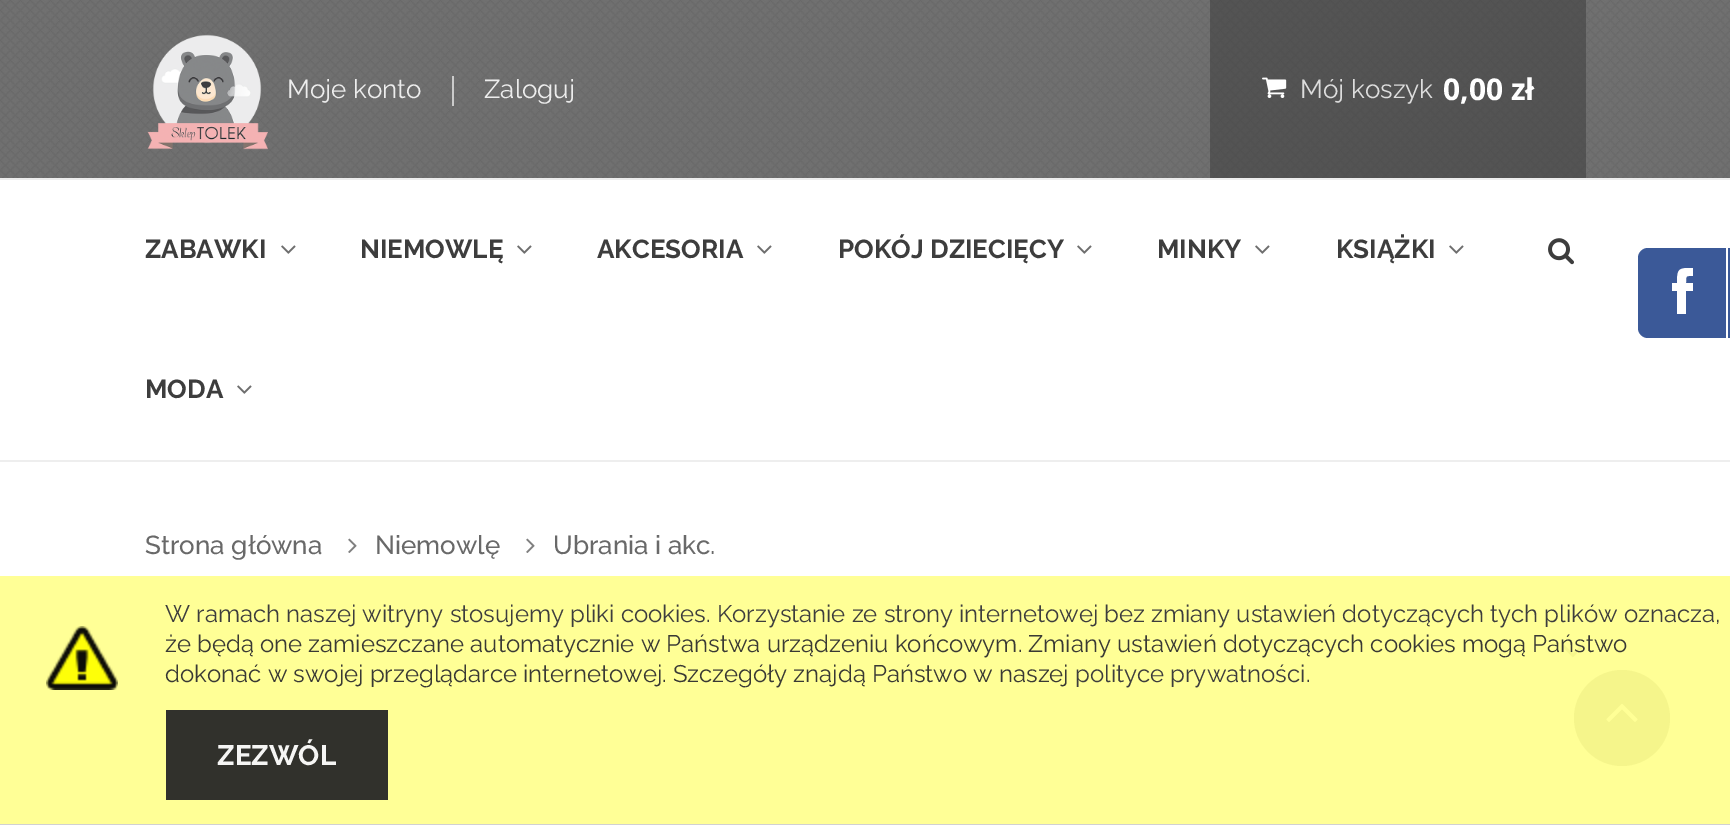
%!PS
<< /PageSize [1730 825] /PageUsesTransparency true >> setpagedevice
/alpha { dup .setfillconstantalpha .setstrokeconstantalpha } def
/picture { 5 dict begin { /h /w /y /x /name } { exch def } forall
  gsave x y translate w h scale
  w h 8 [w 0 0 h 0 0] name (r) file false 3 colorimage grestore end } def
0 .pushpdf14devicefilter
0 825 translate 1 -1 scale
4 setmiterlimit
1 setgray
0 0 1730 825 rectfill
1 1 0.588 setrgbcolor
0 576 1730 248 rectfill
(img1.rgb) 0 0 1730 178 picture
(img2.rgb) 147 34 121 116 picture
/Raleway-Regular [26 0 0 -26 0 0] selectfont
0.929 setgray
287 98 moveto (Moje konto) show
0.796 setgray
452 76 2 30 rectfill
0.929 setgray
484 98 moveto (Zaloguj) show
0.5 alpha
0.22 setgray
1210 0 376 178 rectfill
1 alpha
(img3.rgb) 1262 77 25 21 picture
0.867 setgray
1300 98 moveto (Mój koszyk) show
/OpenSans-Bold [30 0 0 -30 0 0] selectfont
1 setgray
1443 100 moveto (0,00 zł) show
0.933 setgray
0 178 1730 2 rectfill
0 460 1730 2 rectfill
/Raleway-Bold [26 0 0 -26 0 0] selectfont
0.239 setgray
145 258 moveto (ZABAWKI) show
(img4.rgb) 281 245 15 9 picture
360 258 moveto (NIEMOWLĘ) show
(img4.rgb) 517 245 15 9 picture
597 258 moveto (AKCESORIA) show
(img4.rgb) 757 245 15 9 picture
838 258 moveto (POKÓJ DZIECIĘCY) show
(img4.rgb) 1077 245 15 9 picture
1157 258 moveto (MINKY) show
(img4.rgb) 1255 245 15 9 picture
1336 258 moveto (KSIĄŻKI) show
(img4.rgb) 1449 245 15 9 picture
145 398 moveto (MODA) show
(img4.rgb) 237 385 15 9 picture
(img5.rgb) 1548 238 26 27 picture
0.231 0.349 0.596 setrgbcolor
newpath 1648 248 moveto 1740 248 lineto 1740 338 lineto 1648 338 lineto 1642.5 338 1638 333.5 1638 328 curveto 1638 258 lineto 1638 252.5 1642.5 248 1648 248 curveto closepath fill
1 setgray
1726 248 2 90 rectfill
newpath 1686 283 moveto 1693 283 lineto 1693 291 lineto 1686 291 lineto 1686 314 lineto 1677 314 lineto 1677 291 lineto 1672 291 lineto 1672 283 lineto 1677 283 lineto 1677 268 1679 268 1693 268 curveto 1693 276 lineto 1686 276 1686 275 1686 283 curveto closepath fill
/Raleway-Medium [26 0 0 -26 0 0] selectfont
0.412 setgray
145 554 moveto (Strona główna) show
(img6.rgb) 348 538 9 15 picture
375 554 moveto (Niemowlę) show
(img6.rgb) 526 538 9 15 picture
553 554 moveto (Ubrania i akc.) show
0.82 setgray
0 824 1730 1 rectfill
(img7.rgb) 46 626 72 64 picture
/Raleway-Regular [24 0 0 -24 0 0] selectfont
0.239 setgray
165 622 moveto (W ramach naszej witryny stosujemy pliki cookies. Korzystanie ze strony internetowej bez zmiany ustawień dotyczących tych plików oznacza,) show
(img8.rgb) 1561 644 23 14 picture
0.224 0.224 0.204 setrgbcolor
165 652 moveto (że będą one zamieszczane automatycznie w Państwa urządzeniu końcowym. Zmiany ustawień dotyczących cookies mogą Państwo) show
165 682 moveto (dokonać w swojej przeglądarce internetowej. Szczegóły znajdą Państwo w naszej) show
0.239 setgray
1075 682 moveto (polityce prywatności) show
1306 682 moveto (.) show
0.95 alpha
0.149 setgray
166 710 222 90 rectfill
/Raleway-Bold [28 0 0 -28 0 0] selectfont
1 alpha
0.961 0.961 0.957 setrgbcolor
217 765 moveto (ZEZWÓL) show
0.961 0.961 0.545 setrgbcolor
newpath 1622 718 48 0 360 arc closepath fill
(img9.rgb) 1606 703 32 19 picture
.poppdf14devicefilter showpage
